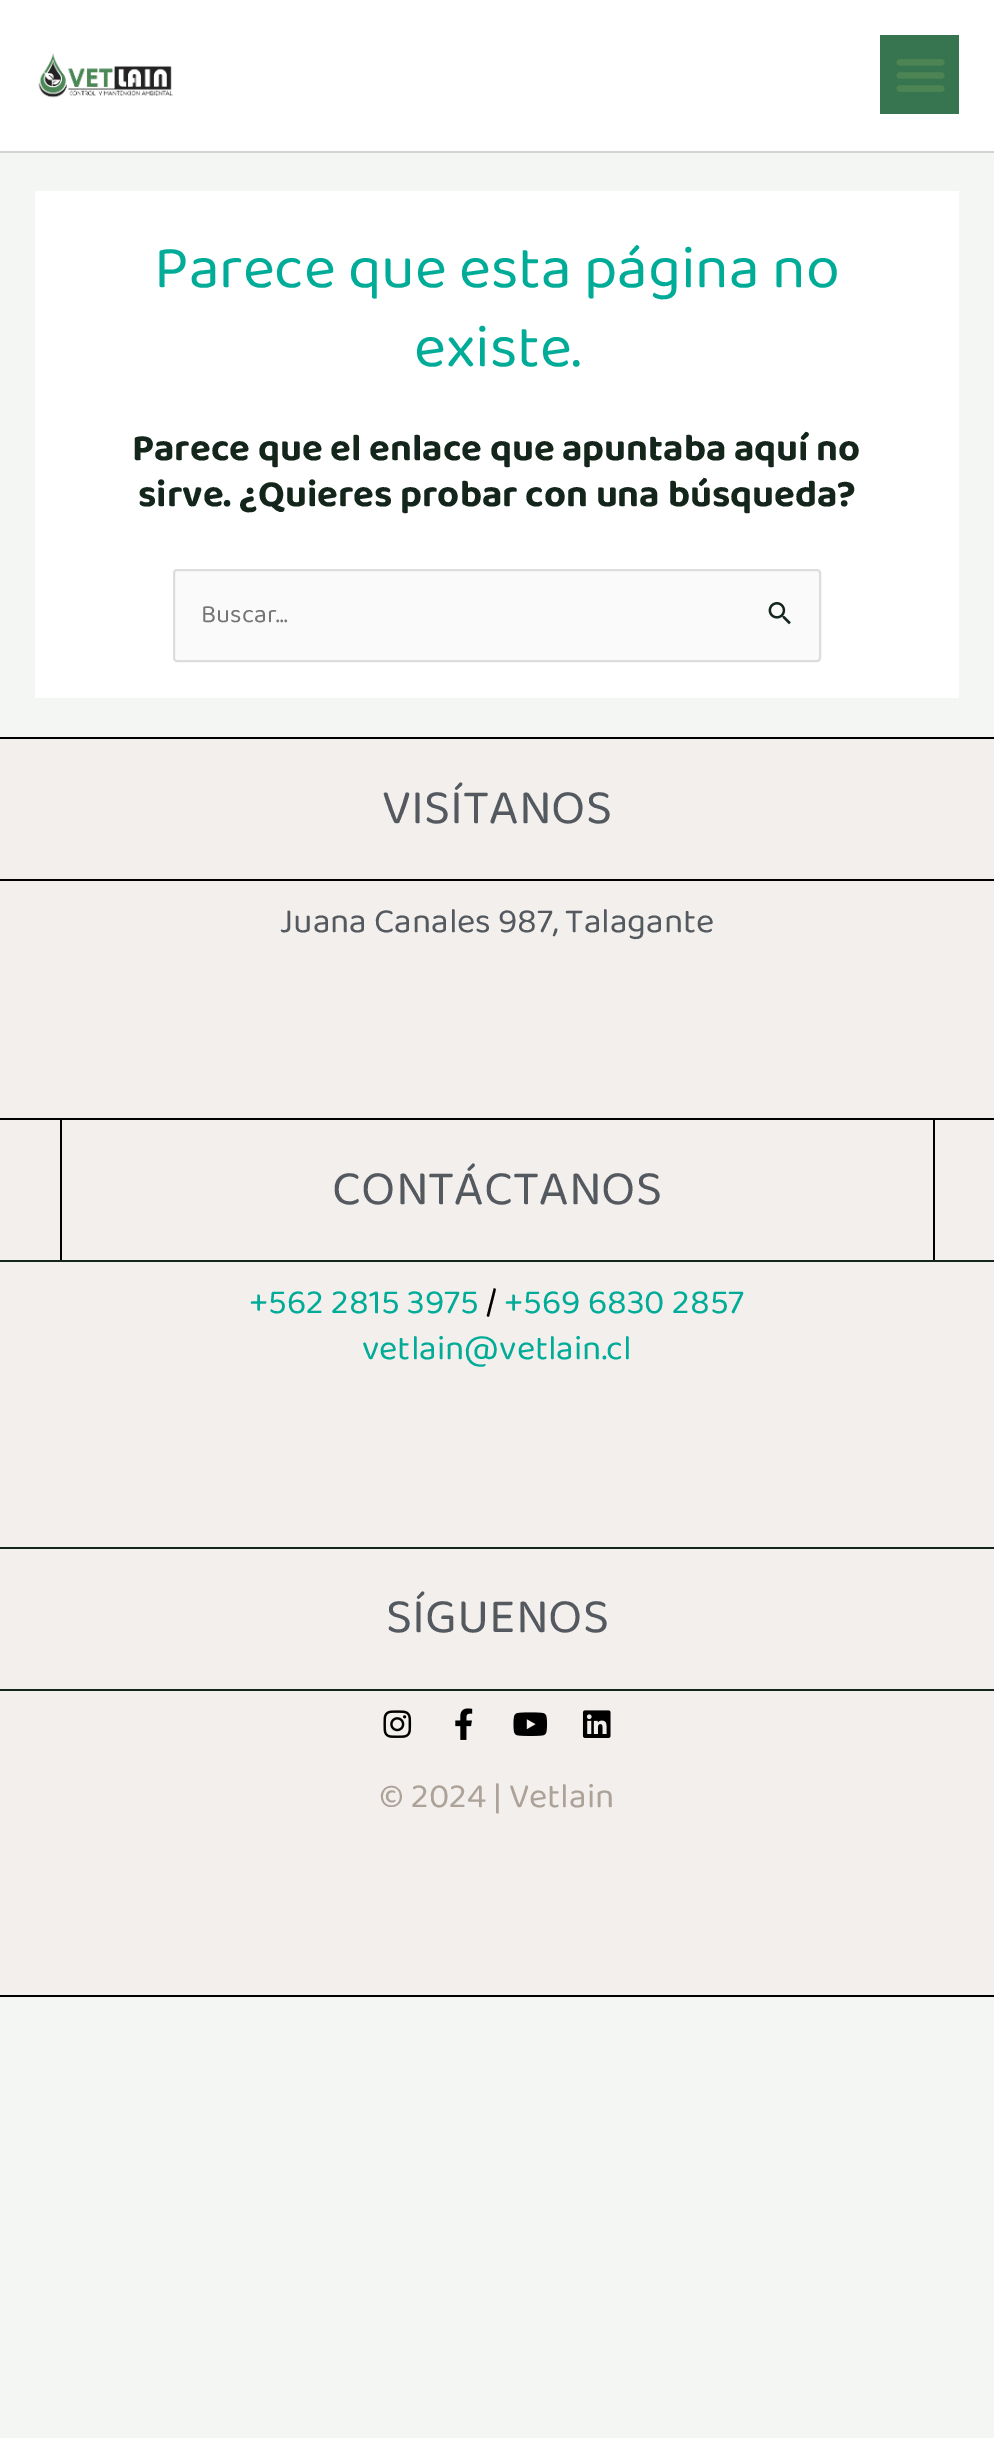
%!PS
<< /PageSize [994 2438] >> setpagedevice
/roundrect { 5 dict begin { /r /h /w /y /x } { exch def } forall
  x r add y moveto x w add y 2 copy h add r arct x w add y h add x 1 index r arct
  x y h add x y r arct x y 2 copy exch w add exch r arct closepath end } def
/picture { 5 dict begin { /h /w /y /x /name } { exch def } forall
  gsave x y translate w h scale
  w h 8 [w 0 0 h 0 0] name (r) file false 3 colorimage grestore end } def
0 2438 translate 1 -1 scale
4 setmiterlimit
0.953 0.965 0.953 setrgbcolor
0 0 994 2438 rectfill
1 setgray
0 0 994 151 rectfill
0.827 setgray
0 151 994 2 rectfill
(img1.rgb) 38 53 135 45 picture
0.216 0.459 0.318 setrgbcolor
880 35 79 79 rectfill
(img2.rgb) 896 59 49 33 picture
1 setgray
35 191 924 507 rectfill
/BalooThambi2-Regular [61.25 0 0 -61.25 0 0] selectfont
0 0.675 0.592 setrgbcolor
154 287 moveto (Parece que esta página no) show
414 366 moveto (existe.) show
/BalooThambi2-Bold [38.25 0 0 -38.25 0 0] selectfont
0.078 0.149 0.11 setrgbcolor
132 460 moveto (Parece que el enlace que apuntaba aquí no) show
138 506 moveto (sirve. ¿Quieres probar con una búsqueda?) show
0.98 setgray
174 570 646 91 3 roundrect gsave fill grestore
0.867 setgray
2 setlinewidth
stroke
/BalooThambi2-Regular [25.5 0 0 -25.5 0 0] selectfont
0.459 setgray
201 622 moveto (Buscar...) show
(img3.rgb) 768 602 23 23 picture
0.949 0.937 0.925 setrgbcolor
0 739 994 1256 rectfill
0 setgray
0 737 994 2 rectfill
0 1995 994 2 rectfill
/BalooThambi2-Regular [49.75 0 0 -49.75 0 0] selectfont
0.329 0.349 0.373 setrgbcolor
382 823 moveto (VISÍTANOS) show
0 setgray
0 879 994 2 rectfill
/BalooThambi2-Regular [35 0 0 -35 0 0] selectfont
0.329 0.349 0.373 setrgbcolor
280 932 moveto (Juana Canales 987, Talagante) show
0 setgray
0 1118 994 2 rectfill
933 1120 2 140 rectfill
60 1120 2 140 rectfill
/BalooThambi2-Regular [49.75 0 0 -49.75 0 0] selectfont
0.329 0.349 0.373 setrgbcolor
332 1204 moveto (CONTÁCTANOS) show
0.078 0.149 0.11 setrgbcolor
0 1260 994 2 rectfill
/BalooThambi2-Regular [35 0 0 -35 0 0] selectfont
0 0.675 0.592 setrgbcolor
249 1313 moveto (+562 2815 3975) show
0 setgray
486 1313 moveto (/) show
0 0.675 0.592 setrgbcolor
504 1313 moveto (+569 6830 2857) show
362 1359 moveto (vetlain@vetlain.cl) show
0.078 0.149 0.11 setrgbcolor
0 1547 994 2 rectfill
/BalooThambi2-Regular [49.75 0 0 -49.75 0 0] selectfont
0.329 0.349 0.373 setrgbcolor
386 1632 moveto (SÍGUENOS) show
0.078 0.149 0.11 setrgbcolor
0 1689 994 2 rectfill
(img4.rgb) 383 1710 29 28 picture
(img5.rgb) 455 1708 18 32 picture
(img6.rgb) 513 1712 35 24 picture
(img7.rgb) 582 1710 29 28 picture
/BalooThambi2-Regular [35 0 0 -35 0 0] selectfont
0.675 0.635 0.596 setrgbcolor
379 1807 moveto (© 2024 | Vetlain) show
showpage
